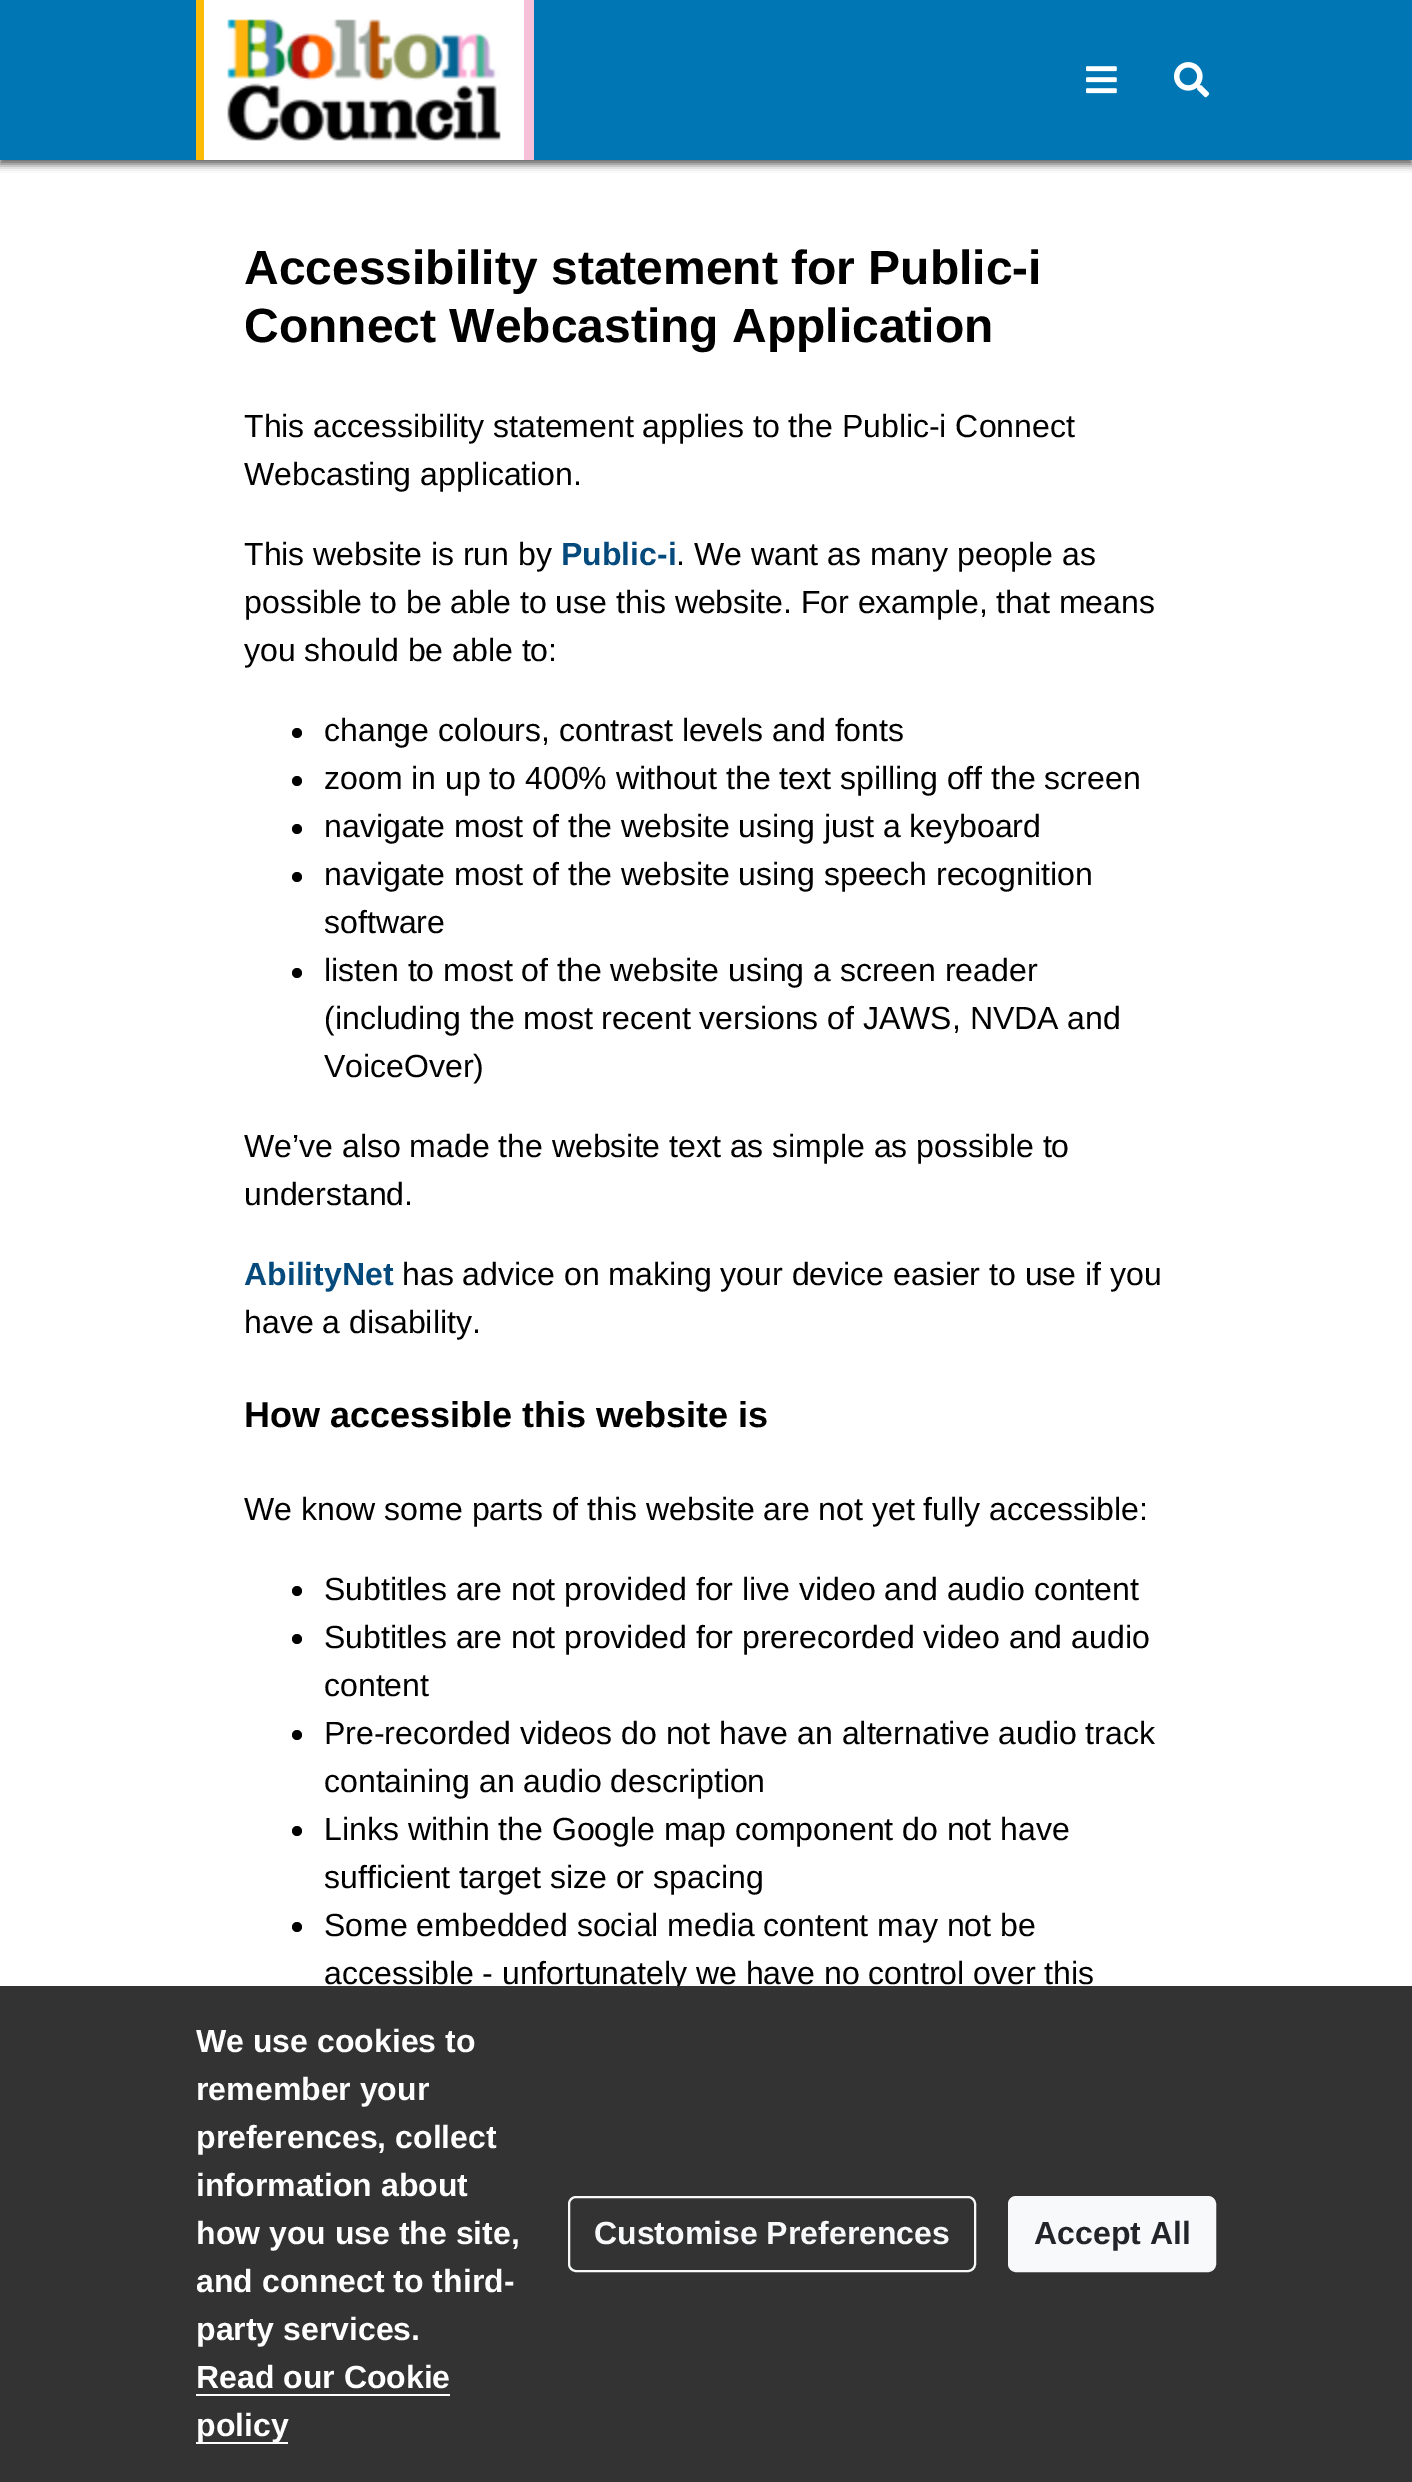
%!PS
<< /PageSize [1412 2482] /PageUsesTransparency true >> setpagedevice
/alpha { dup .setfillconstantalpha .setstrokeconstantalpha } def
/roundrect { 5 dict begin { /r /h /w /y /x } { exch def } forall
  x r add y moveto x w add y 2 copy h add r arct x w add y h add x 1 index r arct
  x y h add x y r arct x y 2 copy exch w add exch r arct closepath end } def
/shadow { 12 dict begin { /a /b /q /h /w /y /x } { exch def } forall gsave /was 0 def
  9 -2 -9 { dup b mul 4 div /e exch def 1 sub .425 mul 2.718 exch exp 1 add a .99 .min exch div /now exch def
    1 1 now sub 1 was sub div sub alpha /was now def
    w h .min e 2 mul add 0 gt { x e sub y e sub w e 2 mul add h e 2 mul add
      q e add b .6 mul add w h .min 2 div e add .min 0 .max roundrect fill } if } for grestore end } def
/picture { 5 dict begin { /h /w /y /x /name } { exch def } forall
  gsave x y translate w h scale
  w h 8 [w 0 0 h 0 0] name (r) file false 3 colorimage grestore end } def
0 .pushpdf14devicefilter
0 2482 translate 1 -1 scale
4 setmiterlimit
1 setgray
0 0 1412 2482 rectfill
0.2 setgray
0 4 1412 160 0 4 0.5 shadow
0 4 1412 160 0 4 0.5 shadow
0 0.467 0.706 setrgbcolor
0 0 1412 160 rectfill
0.98 0.729 0.02 setrgbcolor
196 0 8 160 rectfill
(img1.rgb) 204 0 320 160 picture
0.965 0.753 0.851 setrgbcolor
524 0 10 160 rectfill
(img2.rgb) 1086 66 31 28 picture
(img3.rgb) 1174 62 36 36 picture
/LiberationSans-Bold [48 0 0 -48 0 0] selectfont
0 setgray
244 284 moveto (Accessibility statement for Public-i) show
244 342 moveto (Connect Webcasting Application) show
/LiberationSans-Regular [32 0 0 -32 0 0] selectfont
244 437 moveto (This accessibility statement applies to the Public-i Connect) show
244 485 moveto (Webcasting application.) show
244 565 moveto (This website is run by) show
/LiberationSans-Bold [32 0 0 -32 0 0] selectfont
0.016 0.29 0.486 setrgbcolor
561 565 moveto (Public-i) show
/LiberationSans-Regular [32 0 0 -32 0 0] selectfont
0 setgray
676 565 moveto (. We want as many people as) show
244 613 moveto (possible to be able to use this website. For example, that means) show
244 661 moveto (you should be able to:) show
newpath 297 733 5 0 360 arc closepath fill
324 741 moveto (change colours, contrast levels and fonts) show
newpath 297 781 5 0 360 arc closepath fill
324 789 moveto (zoom in up to 400% without the text spilling off the screen) show
newpath 297 829 5 0 360 arc closepath fill
324 837 moveto (navigate most of the website using just a keyboard) show
newpath 297 877 5 0 360 arc closepath fill
324 885 moveto (navigate most of the website using speech recognition) show
324 933 moveto (software) show
newpath 297 973 5 0 360 arc closepath fill
324 981 moveto (listen to most of the website using a screen reader) show
324 1029 moveto (\(including the most recent versions of JAWS, NVDA and) show
324 1077 moveto (VoiceOver\)) show
244 1157 moveto (We’ve also made the website text as simple as possible to) show
244 1205 moveto (understand.) show
/LiberationSans-Bold [32 0 0 -32 0 0] selectfont
0.016 0.29 0.486 setrgbcolor
244 1285 moveto (AbilityNet) show
/LiberationSans-Regular [32 0 0 -32 0 0] selectfont
0 setgray
402 1285 moveto (has advice on making your device easier to use if you) show
244 1333 moveto (have a disability.) show
/LiberationSans-Bold [36 0 0 -36 0 0] selectfont
244 1427 moveto (How accessible this website is) show
/LiberationSans-Regular [32 0 0 -32 0 0] selectfont
244 1520 moveto (We know some parts of this website are not yet fully accessible:) show
newpath 297 1591 5 0 360 arc closepath fill
324 1600 moveto (Subtitles are not provided for live video and audio content) show
newpath 297 1639 5 0 360 arc closepath fill
324 1648 moveto (Subtitles are not provided for prerecorded video and audio) show
324 1696 moveto (content) show
newpath 297 1735 5 0 360 arc closepath fill
324 1744 moveto (Pre-recorded videos do not have an alternative audio track) show
324 1792 moveto (containing an audio description) show
newpath 297 1831 5 0 360 arc closepath fill
324 1840 moveto (Links within the Google map component do not have) show
324 1888 moveto (sufficient target size or spacing) show
newpath 297 1927 5 0 360 arc closepath fill
324 1936 moveto (Some embedded social media content may not be) show
324 1984 moveto (accessible - unfortunately we have no control over this) show
0.2 setgray
0 1986 1412 496 rectfill
/LiberationSans-Bold [32 0 0 -32 0 0] selectfont
1 setgray
196 2052 moveto (We use cookies to) show
196 2100 moveto (remember your) show
196 2148 moveto (preferences, collect) show
196 2196 moveto (information about) show
196 2244 moveto (how you use the site,) show
196 2292 moveto (and connect to third-) show
196 2340 moveto (party services.) show
196 2388 moveto (Read our Cookie) show
196 2394 254 2 rectfill
196 2442 92 2 rectfill
196 2436 moveto (policy) show
0.973 0.976 0.98 setrgbcolor
2 setlinewidth
569 2197 406 74 7 roundrect stroke
594 2244 moveto (Customise Preferences) show
1009 2197 206 74 7 roundrect gsave fill grestore
stroke
0.129 0.145 0.161 setrgbcolor
1034 2244 moveto (Accept All) show
.poppdf14devicefilter showpage
